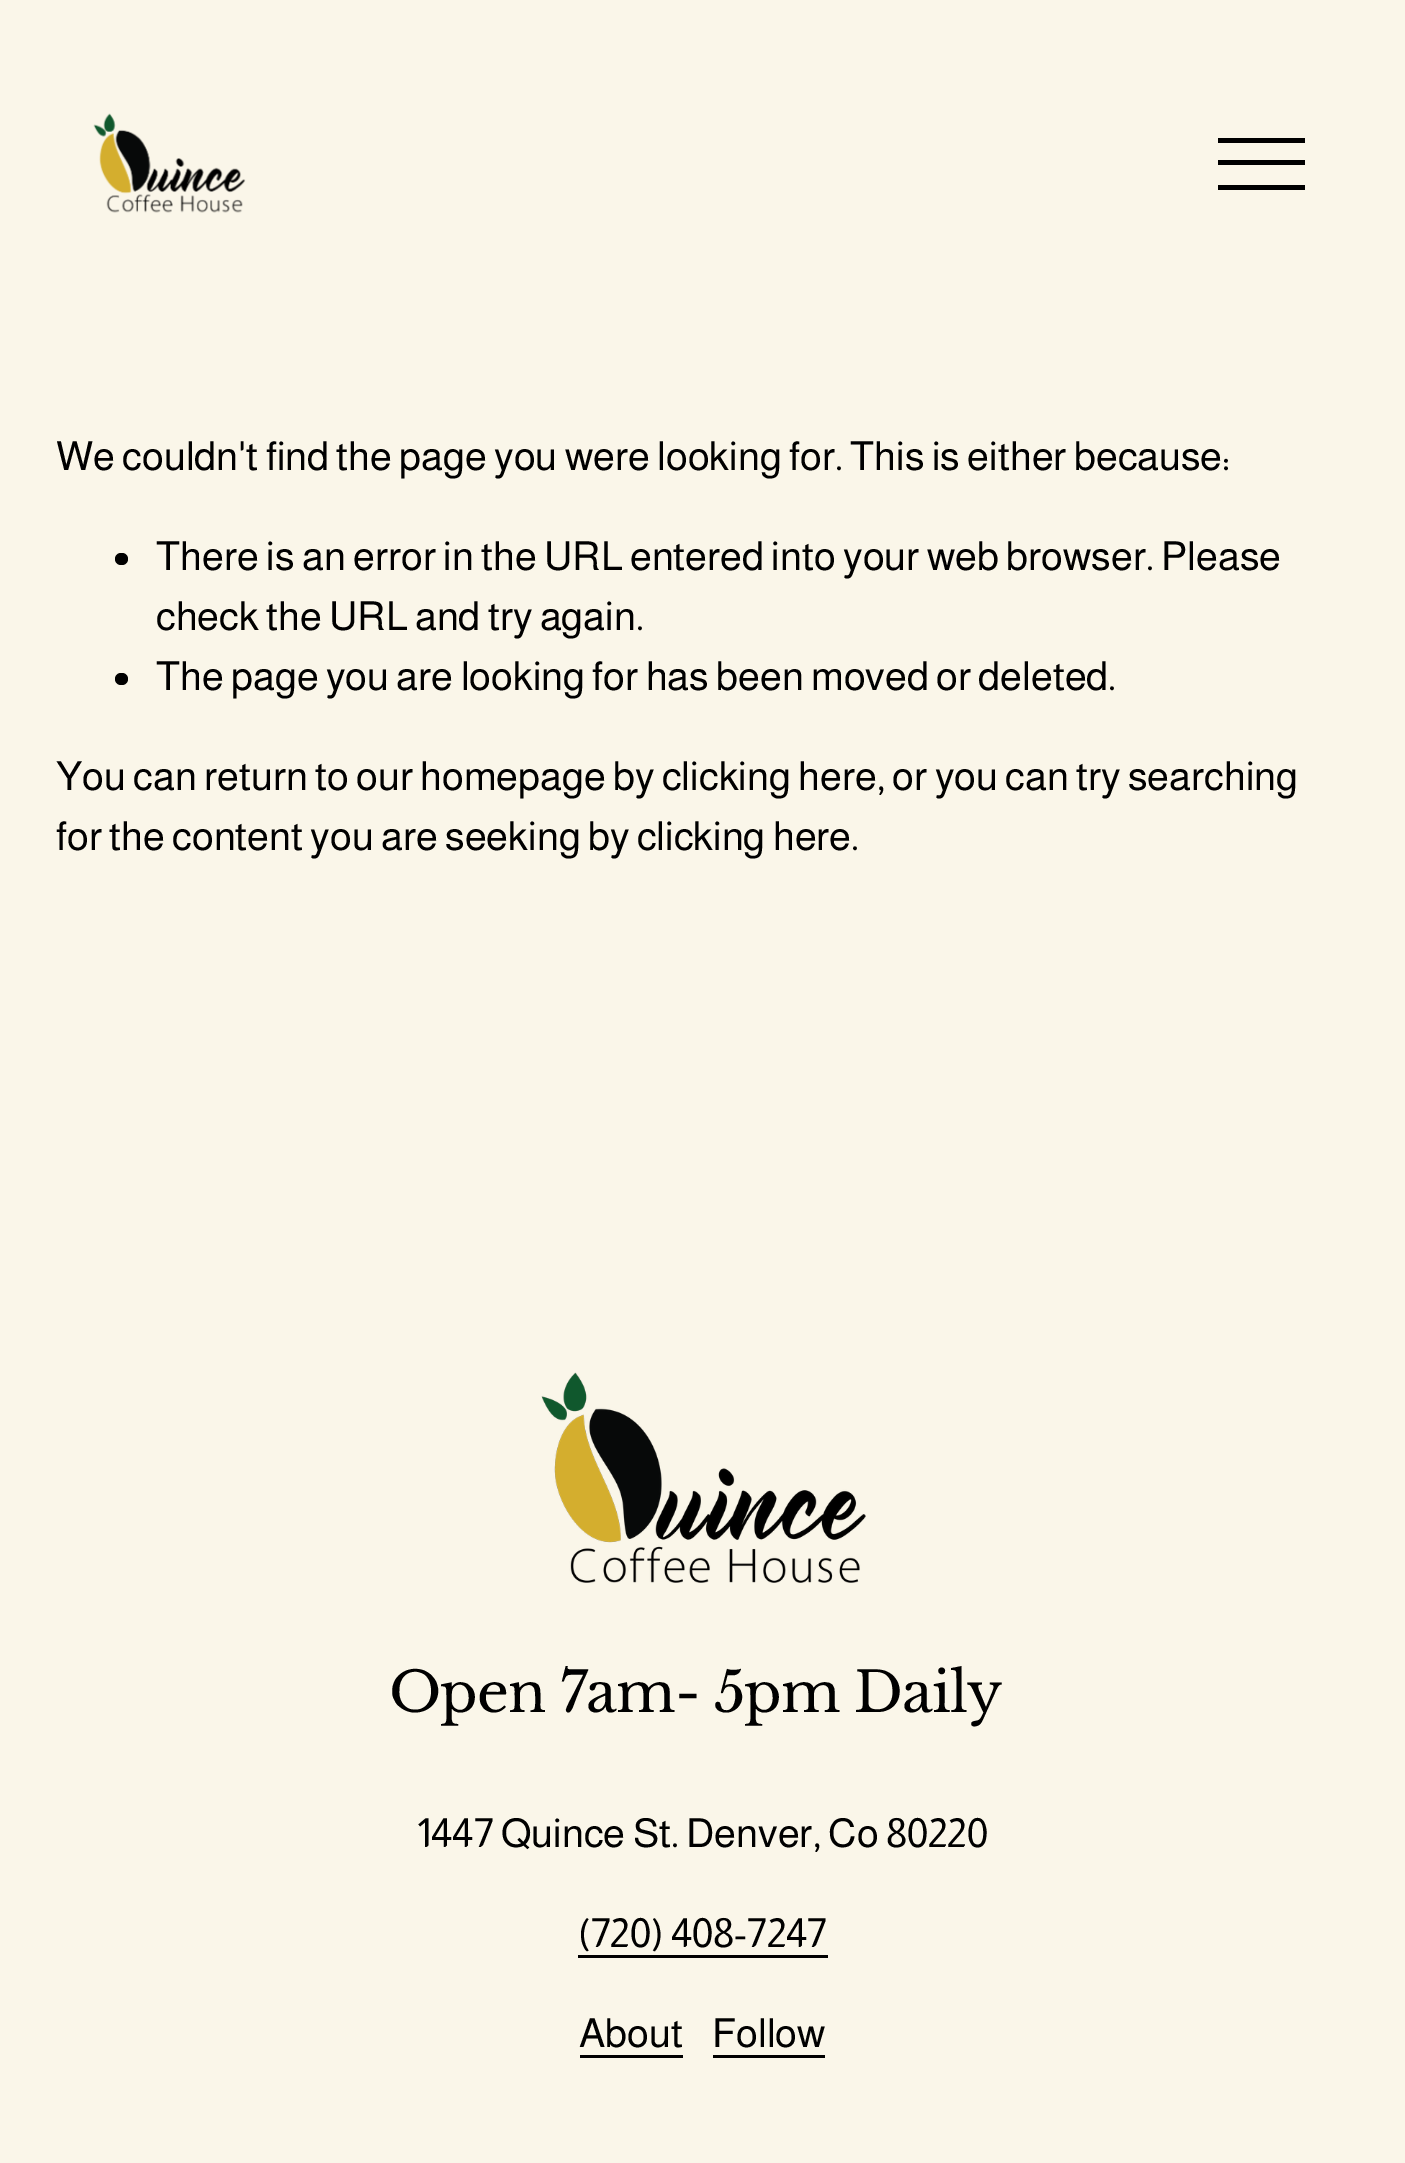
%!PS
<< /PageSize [1405 2163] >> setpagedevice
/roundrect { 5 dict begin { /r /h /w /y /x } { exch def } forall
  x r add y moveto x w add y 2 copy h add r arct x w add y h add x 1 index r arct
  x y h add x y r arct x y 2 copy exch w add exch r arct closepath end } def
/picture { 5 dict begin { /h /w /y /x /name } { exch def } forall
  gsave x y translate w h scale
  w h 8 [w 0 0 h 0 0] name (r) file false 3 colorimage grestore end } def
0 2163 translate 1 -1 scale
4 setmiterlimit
0.98 0.965 0.914 setrgbcolor
0 0 1405 2163 rectfill
(img1.rgb) 93 113 153 100 picture
0 setgray
1218 138 87 5 rectfill
1218 160 87 5 rectfill
1218 185 87 5 rectfill
/Almarai-Regular [40 0 0 -40 0 0] selectfont
56 470 moveto (We couldn't find the page you were looking for. This is either because:) show
115 553 13 12 6 roundrect fill
156 570 moveto (There is an error in the URL entered into your web browser. Please) show
156 630 moveto (check the URL and try again.) show
115 673 13 12 6 roundrect fill
156 690 moveto (The page you are looking for has been moved or deleted.) show
56 790 moveto (You can return to our homepage by clicking here, or you can try searching) show
56 850 moveto (for the content you are seeking by clicking here.) show
(img2.rgb) 541 1372 325 211 picture
/LibreBaskerville-Regular [55.5 0 0 -55.5 0 0] selectfont
389 1712 moveto -1.1 0 (Open 7am- 5pm Daily) ashow
/Almarai-Regular [40 0 0 -40 0 0] selectfont
417 1847 moveto (1447 Quince St. Denver, Co 80220) show
578 1947 moveto (\(720\) 408-7247) show
578 1955 250 3 rectfill
579 2047 moveto (About) show
580 2055 103 3 rectfill
712 2047 moveto (Follow) show
713 2055 112 3 rectfill
showpage
